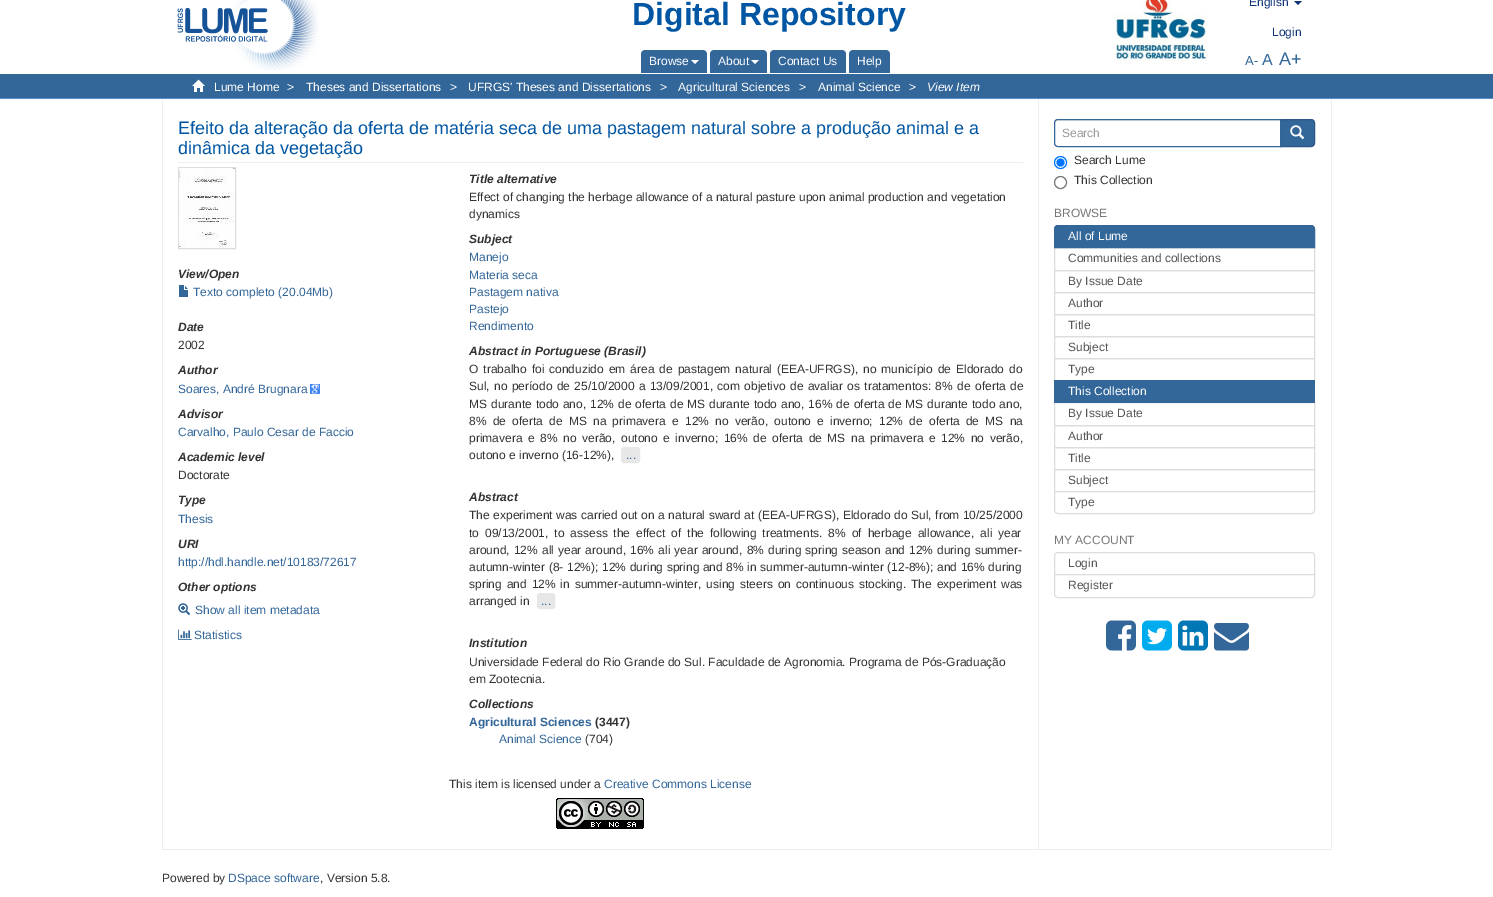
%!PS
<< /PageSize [1493 897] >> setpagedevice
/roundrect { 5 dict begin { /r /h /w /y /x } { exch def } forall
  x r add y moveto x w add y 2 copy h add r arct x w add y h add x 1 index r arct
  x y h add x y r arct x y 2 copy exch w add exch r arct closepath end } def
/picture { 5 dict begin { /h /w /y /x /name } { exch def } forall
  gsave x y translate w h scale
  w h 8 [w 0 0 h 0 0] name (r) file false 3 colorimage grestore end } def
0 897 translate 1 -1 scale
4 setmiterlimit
1 setgray
0 0 1493 897 rectfill
(img1.rgb) 177 0 142 71 picture
/LiberationSans-Bold [32 0 0 -32 0 0] selectfont
0 0.337 0.639 setrgbcolor
632 25 moveto (Digital Repository) show
0.2 0.4 0.6 setrgbcolor
newpath 645 50 moveto 703 50 lineto 705 50 707 52 707 54 curveto 707 73 lineto 641 73 lineto 641 54 lineto 641 52 643 50 645 50 curveto closepath fill
/LiberationSans-Regular [12 0 0 -12 0 0] selectfont
1 setgray
649 65 moveto (Browse) show
newpath 691 60 moveto 699 60 lineto 695 64 lineto closepath fill
0.2 0.4 0.6 setrgbcolor
newpath 714 50 moveto 763 50 lineto 765 50 767 52 767 54 curveto 767 73 lineto 710 73 lineto 710 54 lineto 710 52 712 50 714 50 curveto closepath fill
1 setgray
718 65 moveto (About) show
newpath 751 60 moveto 759 60 lineto 755 64 lineto closepath fill
0.2 0.4 0.6 setrgbcolor
newpath 774 50 moveto 842 50 lineto 844 50 846 52 846 54 curveto 846 73 lineto 770 73 lineto 770 54 lineto 770 52 772 50 774 50 curveto closepath fill
1 setgray
778 65 moveto (Contact Us) show
0.2 0.4 0.6 setrgbcolor
newpath 853 50 moveto 886 50 lineto 888 50 890 52 890 54 curveto 890 73 lineto 849 73 lineto 849 54 lineto 849 52 851 50 853 50 curveto closepath fill
1 setgray
857 65 moveto (Help) show
(img2.rgb) 1112 0 95 61 picture
0.067 0.2 0.467 setrgbcolor
1249 6 moveto (English) show
newpath 1294 1 moveto 1302 1 lineto 1298 5 lineto closepath fill
1272 36 moveto (Login) show
/LiberationSans-Regular [13 0 0 -13 0 0] selectfont
0.2 0.4 0.6 setrgbcolor
1245 65 moveto (A-) show
/LiberationSans-Regular [16 0 0 -16 0 0] selectfont
1262 65 moveto (A) show
/LiberationSans-Regular [18 0 0 -18 0 0] selectfont
1279 65 moveto (A+) show
0 74 1493 24 rectfill
0.325 0.549 0.776 setrgbcolor
0 98 1493 1 rectfill
(img3.rgb) 192 79 13 13 picture
/LiberationSans-Regular [12 0 0 -12 0 0] selectfont
1 setgray
214 91 moveto (Lume Home) show
287 91 moveto (>) show
306 91 moveto (Theses and Dissertations) show
450 91 moveto (>) show
468 91 moveto (UFRGS' Theses and Dissertations) show
660 91 moveto (>) show
678 91 moveto (Agricultural Sciences) show
799 91 moveto (>) show
818 91 moveto (Animal Science) show
909 91 moveto (>) show
/LiberationSans-Italic [12 0 0 -12 0 0] selectfont
927 91 moveto (View Item) show
0.933 setgray
1331 99 1 750 rectfill
162 99 1 750 rectfill
1038 99 1 750 rectfill
178 162 845 1 rectfill
/LiberationSans-Regular [18 0 0 -18 0 0] selectfont
0 0.337 0.639 setrgbcolor
178 134 moveto (Efeito da alteração da oferta de matéria seca de uma pastagem natural sobre a produção animal e a) show
178 154 moveto (dinâmica da vegetação) show
0.867 setgray
178.5 167.5 57 81 rectstroke
(img4.rgb) 179 168 56 80 picture
/LiberationSans-BoldItalic [12 0 0 -12 0 0] selectfont
0.2 setgray
178 278 moveto (View/Open) show
(img5.rgb) 179 285 9 12 picture
/LiberationSans-Regular [12 0 0 -12 0 0] selectfont
0.2 0.4 0.6 setrgbcolor
193 296 moveto (Texto completo \(20.04Mb\)) show
/LiberationSans-BoldItalic [12 0 0 -12 0 0] selectfont
0.2 setgray
178 331 moveto (Date) show
/LiberationSans-Regular [12 0 0 -12 0 0] selectfont
178 349 moveto (2002) show
/LiberationSans-BoldItalic [12 0 0 -12 0 0] selectfont
178 374 moveto (Author) show
/LiberationSans-Regular [12 0 0 -12 0 0] selectfont
0.2 0.4 0.6 setrgbcolor
178 393 moveto (Soares, André Brugnara) show
(img6.rgb) 310 384 10 10 picture
/LiberationSans-BoldItalic [12 0 0 -12 0 0] selectfont
0.2 setgray
178 418 moveto (Advisor) show
/LiberationSans-Regular [12 0 0 -12 0 0] selectfont
0.2 0.4 0.6 setrgbcolor
178 436 moveto (Carvalho, Paulo Cesar de Faccio) show
/LiberationSans-BoldItalic [12 0 0 -12 0 0] selectfont
0.2 setgray
178 461 moveto (Academic level) show
/LiberationSans-Regular [12 0 0 -12 0 0] selectfont
178 479 moveto (Doctorate) show
/LiberationSans-BoldItalic [12 0 0 -12 0 0] selectfont
178 504 moveto (Type) show
/LiberationSans-Regular [12 0 0 -12 0 0] selectfont
0.2 0.4 0.6 setrgbcolor
178 523 moveto (Thesis) show
/LiberationSans-BoldItalic [12 0 0 -12 0 0] selectfont
0.2 setgray
178 548 moveto (URI) show
/LiberationSans-Regular [12 0 0 -12 0 0] selectfont
0.2 0.4 0.6 setrgbcolor
178 566 moveto (http://hdl.handle.net/10183/72617) show
/LiberationSans-BoldItalic [12 0 0 -12 0 0] selectfont
0.2 setgray
178 591 moveto (Other options) show
(img7.rgb) 178 603 13 13 picture
/LiberationSans-Regular [12 0 0 -12 0 0] selectfont
0.2 0.4 0.6 setrgbcolor
195 614 moveto (Show all item metadata) show
(img8.rgb) 178 629 14 11 picture
194 639 moveto (Statistics) show
/LiberationSans-BoldItalic [12 0 0 -12 0 0] selectfont
0.2 setgray
469 183 moveto (Title alternative) show
/LiberationSans-Regular [12 0 0 -12 0 0] selectfont
469 201 moveto (Effect of changing the herbage allowance of a natural pasture upon animal production and vegetation) show
469 218 moveto (dynamics) show
/LiberationSans-BoldItalic [12 0 0 -12 0 0] selectfont
469 243 moveto (Subject) show
/LiberationSans-Regular [12 0 0 -12 0 0] selectfont
0.2 0.4 0.6 setrgbcolor
469 261 moveto (Manejo) show
469 279 moveto (Materia seca) show
469 296 moveto (Pastagem nativa) show
469 313 moveto (Pastejo) show
469 330 moveto (Rendimento) show
/LiberationSans-BoldItalic [12 0 0 -12 0 0] selectfont
0.2 setgray
469 355 moveto (Abstract in Portuguese \(Brasil\)) show
/LiberationSans-Regular [12 0 0 -12 0 0] selectfont
469 373 moveto 1.6 0 32 (O trabalho foi conduzido em área de pastagem natural \(EEA-UFRGS\), no município de Eldorado do) widthshow
469 390 moveto 1 0 32 (Sul, no período de 25/10/2000 a 13/09/2001, com objetivo de avaliar os tratamentos: 8% de oferta de) widthshow
469 408 moveto 0.6 0 32 (MS durante todo ano, 12% de oferta de MS durante todo ano, 16% de oferta de MS durante todo ano,) widthshow
469 425 moveto 2.9 0 32 (8% de oferta de MS na primavera e 12% no verão, outono e inverno; 12% de oferta de MS na) widthshow
469 442 moveto 2.25 0 32 (primavera e 8% no verão, outono e inverno; 16% de oferta de MS na primavera e 12% no verão,) widthshow
469 459 moveto (outono e inverno \(16-12%\),) show
0.906 setgray
621.5 447.5 18 15 2.5 roundrect gsave fill grestore
stroke
0.2 0.4 0.6 setrgbcolor
626 459 moveto (...) show
/LiberationSans-BoldItalic [12 0 0 -12 0 0] selectfont
0.2 setgray
469 501 moveto (Abstract) show
/LiberationSans-Regular [12 0 0 -12 0 0] selectfont
469 519 moveto 0.2 0 32 (The experiment was carried out on a natural sward at \(EEA-UFRGS\), Eldorado do Sul, from 10/25/2000) widthshow
469 537 moveto 2.6 0 32 (to 09/13/2001, to assess the effect of the following treatments. 8% of herbage allowance, ali year) widthshow
469 554 moveto 0.75 0 32 (around, 12% all year around, 16% ali year around, 8% during spring season and 12% during summer-) widthshow
469 571 moveto 0.3 0 32 (autumn-winter \(8- 12%\); 12% during spring and 8% in summer-autumn-winter \(12-8%\); and 16% during) widthshow
469 588 moveto 1.6 0 32 (spring and 12% in summer-autumn-winter, using steers on continuous stocking. The experiment was) widthshow
469 605 moveto (arranged in) show
0.906 setgray
537.5 593.5 17 15 2.5 roundrect gsave fill grestore
stroke
0.2 0.4 0.6 setrgbcolor
541 605 moveto (...) show
/LiberationSans-BoldItalic [12 0 0 -12 0 0] selectfont
0.2 setgray
469 647 moveto (Institution) show
/LiberationSans-Regular [12 0 0 -12 0 0] selectfont
469 666 moveto (Universidade Federal do Rio Grande do Sul. Faculdade de Agronomia. Programa de Pós-Graduação) show
469 683 moveto (em Zootecnia.) show
/LiberationSans-BoldItalic [12 0 0 -12 0 0] selectfont
469 708 moveto (Collections) show
/LiberationSans-Bold [12 0 0 -12 0 0] selectfont
0.2 0.4 0.6 setrgbcolor
469 726 moveto (Agricultural Sciences) show
0.2 setgray
595 726 moveto (\(3447\)) show
/LiberationSans-Regular [12 0 0 -12 0 0] selectfont
0.2 0.4 0.6 setrgbcolor
499 743 moveto (Animal Science) show
0.2 setgray
585 743 moveto (\(704\)) show
449 788 moveto (This item is licensed under a) show
0.2 0.4 0.6 setrgbcolor
604 788 moveto (Creative Commons License) show
(img9.rgb) 556 798 88 31 picture
newpath 1280.5 119.5 moveto 1311 119.5 lineto 1313 119.5 1314.5 121 1314.5 123 curveto 1314.5 143 lineto 1314.5 145 1313 146.5 1311 146.5 curveto 1280.5 146.5 lineto closepath gsave fill grestore
0.176 0.349 0.525 setrgbcolor
stroke
1 setgray
newpath 1058 119 moveto 1281 119 lineto 1281 147 lineto 1058 147 lineto 1056 147 1054 145 1054 143 curveto 1054 123 lineto 1054 121 1056 119 1058 119 curveto closepath fill
0.925 setgray
newpath 1058 121 moveto 1280 121 lineto 1280 120 lineto 1058 120 lineto 1056 120 1055 122 1055 124 curveto 1055 122 1056 121 1058 121 curveto closepath fill
0.2 0.4 0.6 setrgbcolor
newpath 1058 119.5 moveto 1280.5 119.5 lineto 1280.5 146.5 lineto 1058 146.5 lineto 1056 146.5 1054.5 145 1054.5 143 curveto 1054.5 123 lineto 1054.5 121 1056 119.5 1058 119.5 curveto closepath stroke
0.6 setgray
1062 137 moveto (Search) show
(img10.rgb) 1290 125 15 15 picture
0 0.459 1 setrgbcolor
newpath 1060.5 162.5 6 0 360 arc closepath stroke
newpath 1060.5 162.5 4 0 360 arc closepath fill
0.2 setgray
1074 164 moveto (Search Lume) show
0.463 setgray
newpath 1060.5 182.5 6 0 360 arc closepath stroke
0.2 setgray
1074 184 moveto (This Collection) show
0.467 setgray
1054 217 moveto (BROWSE) show
0.867 setgray
1054.5 247.5 260 23 rectstroke
0.2 0.4 0.6 setrgbcolor
newpath 1058 225.5 moveto 1311 225.5 lineto 1313 225.5 1314.5 227 1314.5 229 curveto 1314.5 247.5 lineto 1054.5 247.5 lineto 1054.5 229 lineto 1054.5 227 1056 225.5 1058 225.5 curveto closepath gsave fill grestore
stroke
1 setgray
1068 240 moveto (All of Lume) show
0.333 setgray
1068 262 moveto (Communities and collections) show
0.867 setgray
1054.5 270.5 260 22 rectstroke
0.333 setgray
1068 285 moveto (By Issue Date) show
0.867 setgray
1054.5 292.5 260 22 rectstroke
0.333 setgray
1068 307 moveto (Author) show
0.867 setgray
1054.5 314.5 260 22 rectstroke
0.333 setgray
1068 329 moveto (Title) show
0.867 setgray
1054.5 336.5 260 22 rectstroke
0.333 setgray
1068 351 moveto (Subject) show
0.867 setgray
1054.5 358.5 260 22 rectstroke
0.333 setgray
1068 373 moveto (Type) show
0.867 setgray
1054.5 402.5 260 23 rectstroke
0.2 0.4 0.6 setrgbcolor
1054 380 261 23 rectfill
1 setgray
1068 395 moveto (This Collection) show
0.333 setgray
1068 417 moveto (By Issue Date) show
0.867 setgray
1054.5 425.5 260 22 rectstroke
0.333 setgray
1068 440 moveto (Author) show
0.867 setgray
1054.5 447.5 260 22 rectstroke
0.333 setgray
1068 462 moveto (Title) show
0.867 setgray
1054.5 469.5 260 22 rectstroke
0.333 setgray
1068 484 moveto (Subject) show
1 setgray
newpath 1054.5 491.5 moveto 1314.5 491.5 lineto 1314.5 510 lineto 1314.5 512 1313 513.5 1311 513.5 curveto 1058 513.5 lineto 1056 513.5 1054.5 512 1054.5 510 curveto closepath gsave fill grestore
0.867 setgray
stroke
0.333 setgray
1068 506 moveto (Type) show
0.467 setgray
1054 544 moveto (MY ACCOUNT) show
0.867 setgray
newpath 1058 552.5 moveto 1311 552.5 lineto 1313 552.5 1314.5 554 1314.5 556 curveto 1314.5 574.5 lineto 1054.5 574.5 lineto 1054.5 556 lineto 1054.5 554 1056 552.5 1058 552.5 curveto closepath stroke
0.333 setgray
1068 567 moveto (Login) show
1 setgray
newpath 1054.5 574.5 moveto 1314.5 574.5 lineto 1314.5 594 lineto 1314.5 596 1313 597.5 1311 597.5 curveto 1058 597.5 lineto 1056 597.5 1054.5 596 1054.5 594 curveto closepath gsave fill grestore
0.867 setgray
stroke
0.333 setgray
1068 589 moveto (Register) show
(img11.rgb) 1106 620 30 31 picture
(img12.rgb) 1142 620 30 31 picture
(img13.rgb) 1178 620 30 31 picture
(img14.rgb) 1214 623 35 28 picture
0.933 setgray
162 849 1170 1 rectfill
0.2 setgray
162 882 moveto (Powered by) show
0.2 0.4 0.6 setrgbcolor
228 882 moveto (DSpace software) show
0.2 setgray
320 882 moveto (, Version 5.8.) show
showpage
